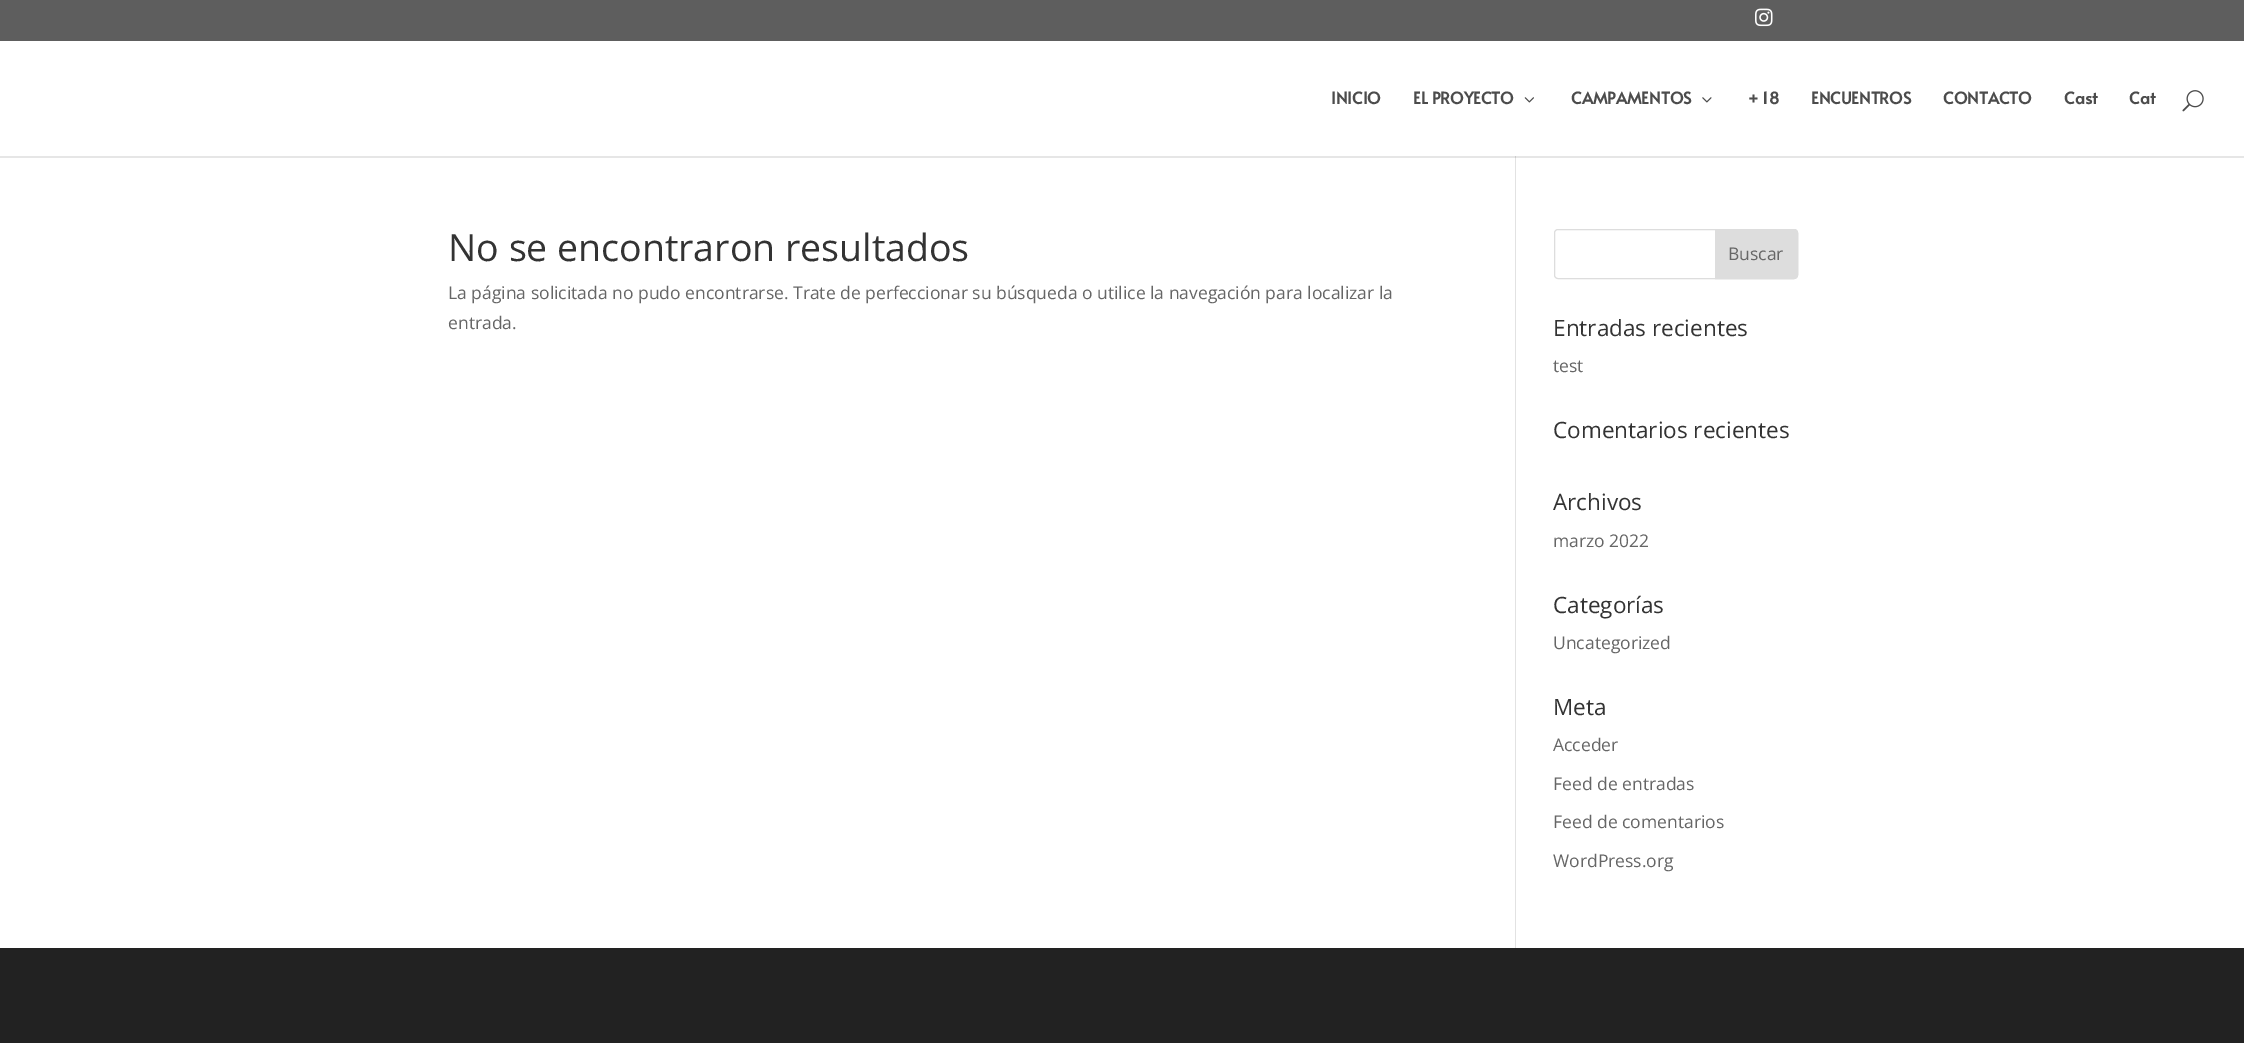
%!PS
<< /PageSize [2244 1043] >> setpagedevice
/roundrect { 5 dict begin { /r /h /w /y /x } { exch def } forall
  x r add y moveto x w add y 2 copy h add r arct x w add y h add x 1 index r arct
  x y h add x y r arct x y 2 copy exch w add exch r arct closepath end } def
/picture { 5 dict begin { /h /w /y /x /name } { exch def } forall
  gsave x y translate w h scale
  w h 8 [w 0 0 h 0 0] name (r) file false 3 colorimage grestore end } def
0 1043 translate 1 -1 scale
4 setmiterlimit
0.369 setgray
0 0 2244 1043 rectfill
(img1.rgb) 1755 8 18 19 picture
1 setgray
0 41 2244 115 rectfill
/Alata-Bold [16.25 0 0 -16.25 0 0] selectfont
0.298 setgray
1331 104 moveto (INICIO) show
1413 104 moveto (EL PROYECTO) show
(img2.rgb) 1524 97 10 6 picture
1571 104 moveto (CAMPAMENTOS) show
(img3.rgb) 1702 97 10 6 picture
1748 104 moveto (+ 18) show
1811 104 moveto (ENCUENTROS) show
1943 104 moveto (CONTACTO) show
2064 104 moveto (Cast) show
2129 104 moveto (Cat) show
(img4.rgb) 2182 90 22 22 picture
1 setgray
0 158 2244 790 rectfill
0.902 setgray
0 156 2244 2 rectfill
0.886 setgray
1515 156 1 792 rectfill
0.796 setgray
1515 156 1 2 rectfill
/OpenSans-Regular [37.5 0 0 -37.5 0 0] selectfont
0.2 setgray
448 261 moveto (No se encontraron resultados) show
/OpenSans-Regular [17.5 0 0 -17.5 0 0] selectfont
0.4 setgray
448 299 moveto (La página solicitada no pudo encontrarse. Trate de perfeccionar su búsqueda o utilice la navegación para localizar la) show
448 329 moveto (entrada.) show
0.867 setgray
1554.5 229.5 243 49 3.5 roundrect stroke
newpath 1715.5 229.5 moveto 1794 229.5 lineto 1796 229.5 1797.5 231 1797.5 233 curveto 1797.5 275 lineto 1797.5 277 1796 278.5 1794 278.5 curveto 1715.5 278.5 lineto closepath gsave fill grestore
stroke
0.4 setgray
1728 260 moveto (Buscar) show
/OpenSans-Regular [22.5 0 0 -22.5 0 0] selectfont
0.2 setgray
1553 336 moveto (Entradas recientes) show
/OpenSans-Regular [17.5 0 0 -17.5 0 0] selectfont
0.4 setgray
1553 372 moveto (test) show
/OpenSans-Regular [22.5 0 0 -22.5 0 0] selectfont
0.2 setgray
1553 438 moveto (Comentarios recientes) show
1553 510 moveto (Archivos) show
/OpenSans-Regular [17.5 0 0 -17.5 0 0] selectfont
0.4 setgray
1553 547 moveto (marzo 2022) show
/OpenSans-Regular [22.5 0 0 -22.5 0 0] selectfont
0.2 setgray
1553 613 moveto (Categorías) show
/OpenSans-Regular [17.5 0 0 -17.5 0 0] selectfont
0.4 setgray
1553 649 moveto (Uncategorized) show
/OpenSans-Regular [22.5 0 0 -22.5 0 0] selectfont
0.2 setgray
1553 715 moveto (Meta) show
/OpenSans-Regular [17.5 0 0 -17.5 0 0] selectfont
0.4 setgray
1553 751 moveto (Acceder) show
1553 790 moveto (Feed de entradas) show
1553 828 moveto (Feed de comentarios) show
1553 867 moveto (WordPress.org) show
0.133 setgray
0 948 2244 95 rectfill
showpage
